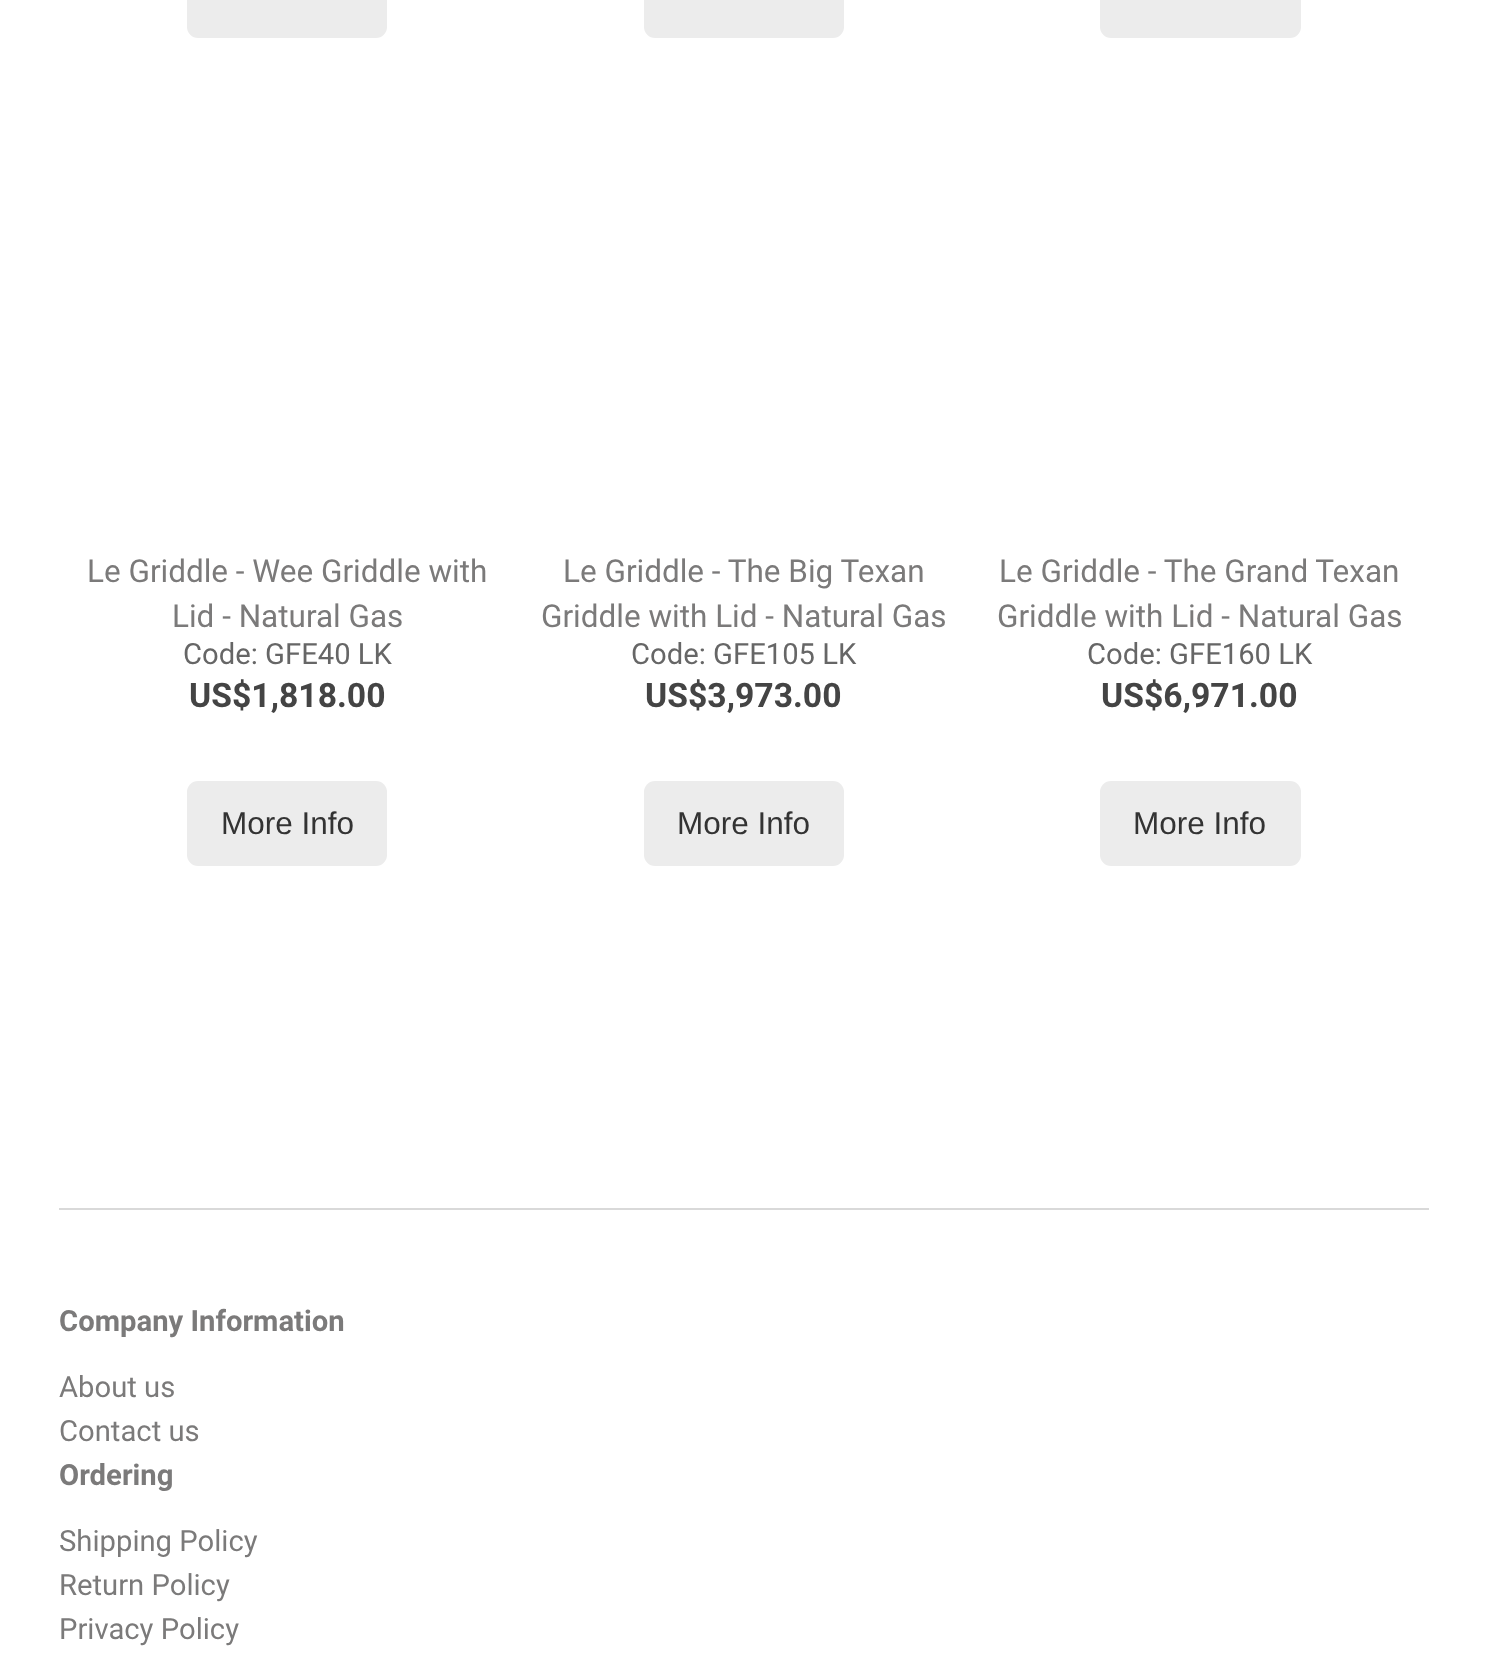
<svg xmlns="http://www.w3.org/2000/svg" width="1487" height="1669" viewBox="0 0 1487 1669">
  <rect width="100%" height="100%" fill="#ffffff"/>
  <rect x="187" y="-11" width="200" height="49" rx="11" fill="#ececec"/>
  <rect x="644" y="-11" width="200" height="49" rx="11" fill="#ececec"/>
  <rect x="1100" y="-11" width="201" height="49" rx="11" fill="#ececec"/>
  <text x="87" y="582" font-family="Roboto" font-size="31.5" fill="#7b7a7a">Le Griddle - Wee Griddle with</text>
  <text x="172" y="627" font-family="Roboto" font-size="31.5" fill="#7b7a7a">Lid - Natural Gas</text>
  <text x="183" y="664" font-family="Roboto" font-size="29.25" fill="#666666">Code: GFE40 LK</text>
  <text x="189" y="707" font-family="Roboto" font-size="33.75" font-weight="bold" fill="#444444">US$1,818.00</text>
  <rect x="187" y="781" width="200" height="85" rx="11" fill="#ececec"/>
  <text x="221" y="834" font-family="Liberation Sans" font-size="31.5" fill="#333333">More Info</text>
  <text x="563" y="582" font-family="Roboto" font-size="31.5" fill="#7b7a7a">Le Griddle - The Big Texan</text>
  <text x="541" y="627" font-family="Roboto" font-size="31.5" fill="#7b7a7a">Griddle with Lid - Natural Gas</text>
  <text x="631" y="664" font-family="Roboto" font-size="29.25" fill="#666666">Code: GFE105 LK</text>
  <text x="645" y="707" font-family="Roboto" font-size="33.75" font-weight="bold" fill="#444444">US$3,973.00</text>
  <rect x="644" y="781" width="200" height="85" rx="11" fill="#ececec"/>
  <text x="677" y="834" font-family="Liberation Sans" font-size="31.5" fill="#333333">More Info</text>
  <text x="999" y="582" font-family="Roboto" font-size="31.5" fill="#7b7a7a">Le Griddle - The Grand Texan</text>
  <text x="997" y="627" font-family="Roboto" font-size="31.5" fill="#7b7a7a">Griddle with Lid - Natural Gas</text>
  <text x="1087" y="664" font-family="Roboto" font-size="29.25" fill="#666666">Code: GFE160 LK</text>
  <text x="1101" y="707" font-family="Roboto" font-size="33.75" font-weight="bold" fill="#444444">US$6,971.00</text>
  <rect x="1100" y="781" width="201" height="85" rx="11" fill="#ececec"/>
  <text x="1133" y="834" font-family="Liberation Sans" font-size="31.5" fill="#333333">More Info</text>
  <rect x="59" y="1208" width="1370" height="2" fill="#d9d9d9"/>
  <text x="59" y="1331" font-family="Roboto" font-size="29.25" font-weight="bold" fill="#7b7a7a">Company Information</text>
  <text x="59" y="1397" font-family="Roboto" font-size="29.25" fill="#7b7a7a">About us</text>
  <text x="59" y="1441" font-family="Roboto" font-size="29.25" fill="#7b7a7a">Contact us</text>
  <text x="59" y="1485" font-family="Roboto" font-size="29.25" font-weight="bold" fill="#7b7a7a">Ordering</text>
  <text x="59" y="1551" font-family="Roboto" font-size="29.25" fill="#7b7a7a">Shipping Policy</text>
  <text x="59" y="1595" font-family="Roboto" font-size="29.25" fill="#7b7a7a">Return Policy</text>
  <text x="59" y="1639" font-family="Roboto" font-size="29.25" fill="#7b7a7a">Privacy Policy</text>
</svg>
